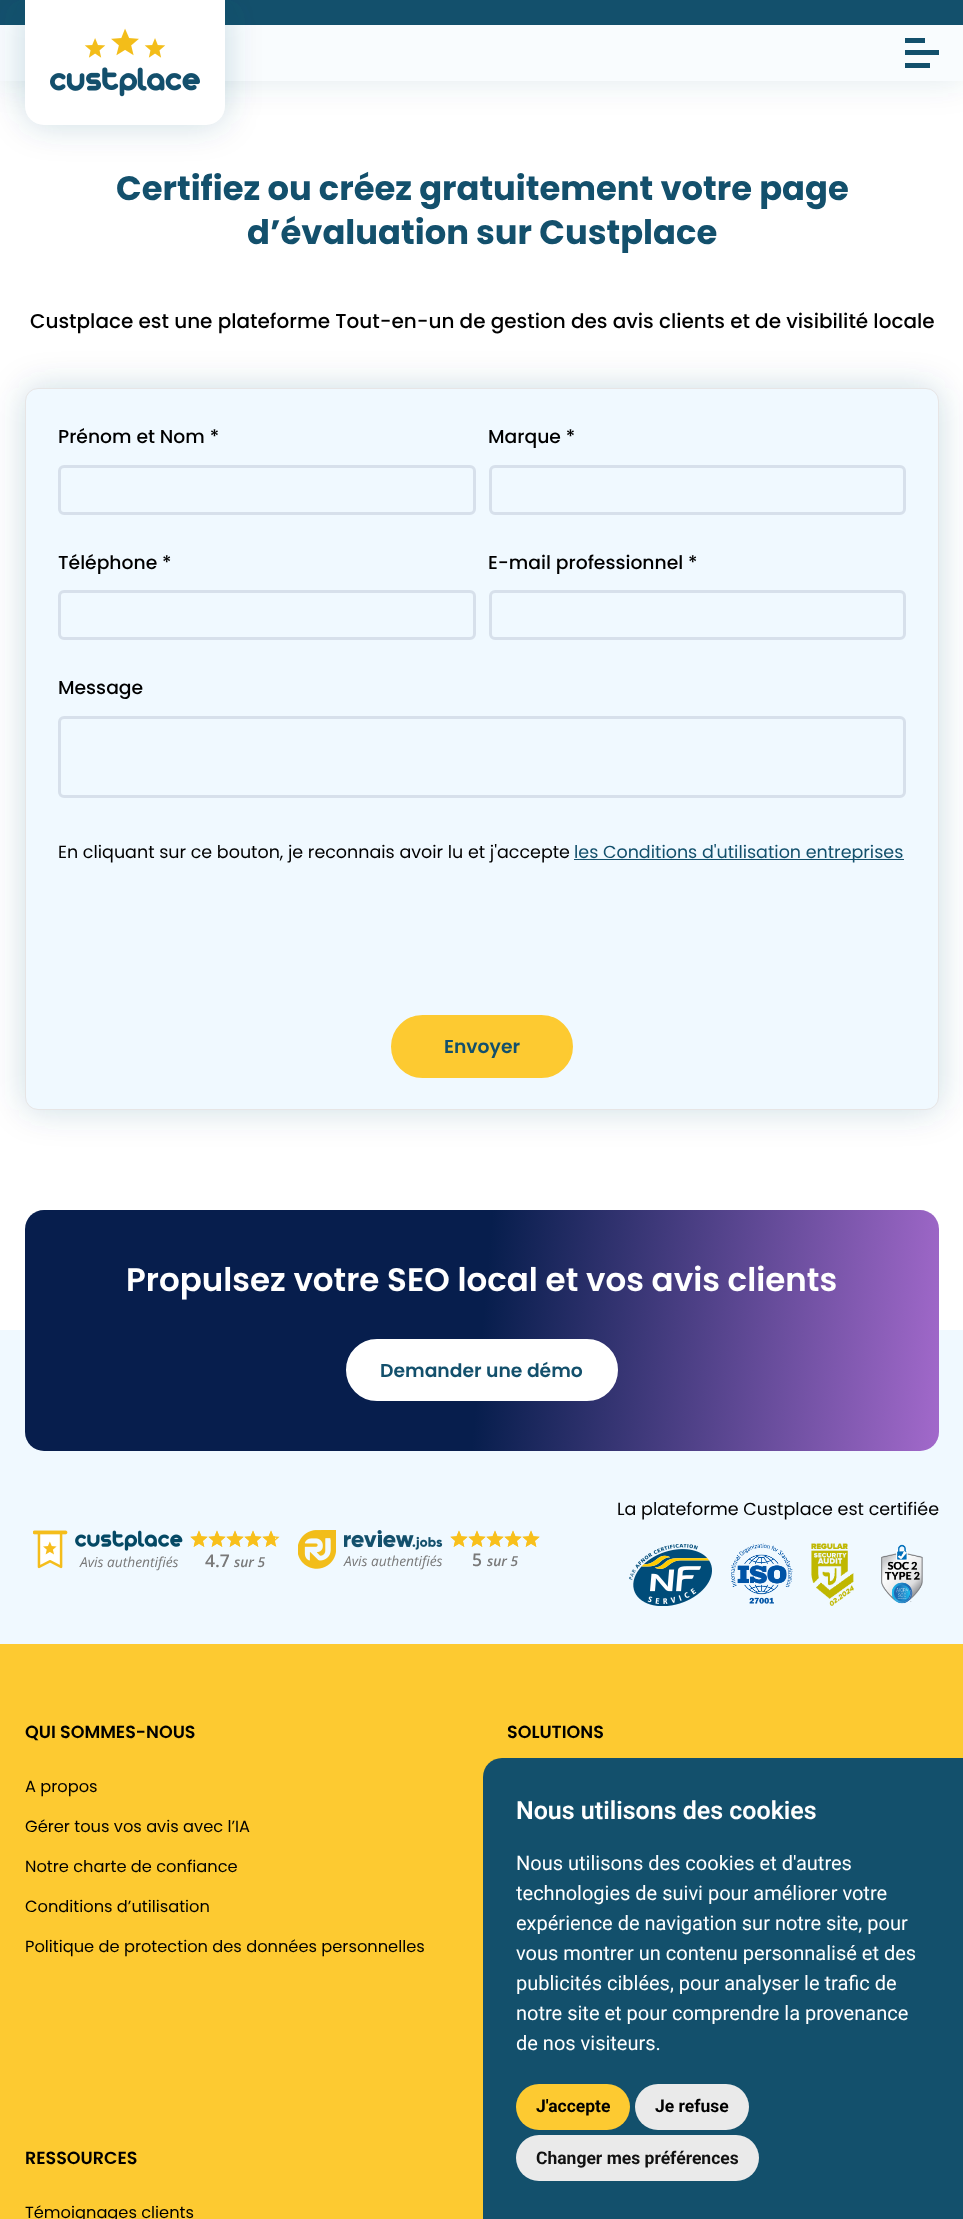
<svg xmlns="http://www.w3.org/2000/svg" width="963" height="2219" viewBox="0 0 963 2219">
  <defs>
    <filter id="blur1" x="-50%" y="-200%" width="200%" height="500%"><feGaussianBlur stdDeviation="17.5"/></filter>
    <linearGradient id="g1" gradientUnits="userSpaceOnUse" x1="18" y1="1290" x2="946" y2="1371"><stop offset="0.5" stop-color="#071e4d"/><stop offset="1" stop-color="#a269cb"/></linearGradient>
  </defs>
  <rect width="100%" height="100%" fill="#ffffff"/>
  <rect x="0" y="0" width="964" height="81" fill="#13506c" fill-opacity="0.12" filter="url(#blur1)"/>
  <rect x="0" y="25" width="963" height="56" fill="#f9fcfe"/>
  <rect x="0" y="0" width="963" height="25" fill="#13506c"/>
  <rect x="25" y="0" width="200" height="125" rx="19" fill="#13506c" fill-opacity="0.2" filter="url(#blur1)"/>
  <path d="M25 0H225V106C225 116.5 216.5 125 206 125H44C33.5 125 25 116.5 25 106Z" fill="#ffffff"/>
  <image x="50" y="28" width="150" height="69" href="img1.png"/>
  <rect x="905" y="50" width="34" height="5" fill="#13506c"/>
  <rect x="905" y="38" width="20" height="5" fill="#13506c"/>
  <rect x="905" y="63" width="25" height="5" fill="#13506c"/>
  <text x="116" y="200" font-family="Poppins" font-size="33.75" font-weight="bold" fill="#13506c">Certifiez ou créez gratuitement votre page</text>
  <text x="247" y="244" font-family="Poppins" font-size="33.75" font-weight="bold" fill="#13506c">d’évaluation sur Custplace</text>
  <text x="30" y="328" font-family="Poppins" font-size="20" font-weight="500" fill="#000000">Custplace est une plateforme Tout-en-un de gestion des avis clients et de visibilité locale</text>
  <rect x="25" y="388" width="914" height="722" rx="13" fill="#13506c" fill-opacity="0.2" filter="url(#blur1)"/>
  <rect x="25.5" y="388.5" width="913" height="721" rx="12.5" fill="#f0f9ff" stroke="#e7e5e5"/>
  <text x="58" y="443" font-family="Poppins" font-size="18.75" font-weight="500" fill="#000000">Prénom et Nom *</text>
  <rect x="59.5" y="466.5" width="415" height="47" rx="4.5" fill="none" stroke="#d7e0eb" stroke-width="3"/>
  <text x="488" y="443" font-family="Poppins" font-size="18.75" font-weight="500" fill="#000000">Marque *</text>
  <rect x="490.5" y="466.5" width="414" height="47" rx="4.5" fill="none" stroke="#d7e0eb" stroke-width="3"/>
  <text x="58" y="569" font-family="Poppins" font-size="18.75" font-weight="500" fill="#000000">Téléphone *</text>
  <rect x="59.5" y="591.5" width="415" height="47" rx="4.5" fill="none" stroke="#d7e0eb" stroke-width="3"/>
  <text x="488" y="569" font-family="Poppins" font-size="18.75" font-weight="500" fill="#000000">E-mail professionnel *</text>
  <rect x="490.5" y="591.5" width="414" height="47" rx="4.5" fill="none" stroke="#d7e0eb" stroke-width="3"/>
  <text x="58" y="694" font-family="Poppins" font-size="18.75" font-weight="500" fill="#000000">Message</text>
  <rect x="59.5" y="717.5" width="845" height="79" rx="4.5" fill="none" stroke="#d7e0eb" stroke-width="3"/>
  <text x="58" y="858" font-family="Poppins" font-size="17.5" fill="#000000">En cliquant sur ce bouton, je reconnais avoir lu et j'accepte</text>
  <rect x="574" y="859" width="330" height="1" fill="#13506c"/>
  <text x="574" y="858" font-family="Poppins" font-size="17.5" fill="#13506c">les Conditions d'utilisation entreprises</text>
  <rect x="392.5" y="1016.5" width="179" height="60" rx="30" fill="#fdca31" stroke="#fdca31" stroke-width="3"/>
  <text x="444" y="1053" font-family="Poppins" font-size="18.75" font-weight="600" fill="#13506c">Envoyer</text>
  <rect x="0" y="1330" width="963" height="314" fill="#f0f9ff"/>
  <rect x="25" y="1210" width="914" height="241" rx="19" fill="url(#g1)"/>
  <text x="126" y="1291" font-family="Poppins" font-size="32.5" font-weight="600" fill="#ffffff">Propulsez votre SEO local et vos avis clients</text>
  <rect x="347.5" y="1340.5" width="269" height="59" rx="29.5" fill="#ffffff" stroke="#ffffff" stroke-width="3"/>
  <text x="380" y="1377" font-family="Poppins" font-size="18.75" font-weight="600" fill="#13506c">Demander une démo</text>
  <text x="617" y="1515" font-family="Poppins" font-size="17.5" fill="#000000">La plateforme Custplace est certifiée</text>
  <image x="629" y="1544" width="83" height="62" href="img2.png"/>
  <image x="731" y="1543" width="62" height="61" href="img3.png"/>
  <image x="811" y="1543" width="43" height="63" href="img4.png"/>
  <image x="881" y="1544" width="42" height="60" href="img5.png"/>
  <image x="33" y="1530" width="35" height="39" href="img6.png"/>
  <image x="75" y="1530" width="108" height="21" href="img7.png"/>
  <text x="80" y="1567" font-family="Open Sans" font-size="13.75" font-style="italic" fill="#797979">Avis authentifiés</text>
  <image x="190" y="1530" width="90" height="17" href="img8.png"/>
  <image x="190" y="1530" width="85" height="17" href="img9.png"/>
  <text x="205" y="1567" font-family="Open Sans" font-size="17.5" font-weight="600" fill="#797979">4.7</text>
  <text x="234" y="1567" font-family="Open Sans" font-size="13.75" font-weight="600" font-style="italic" fill="#797979">sur 5</text>
  <image x="298" y="1530" width="38" height="39" href="img10.png"/>
  <image x="344" y="1530" width="99" height="20" href="img11.png"/>
  <text x="344" y="1566" font-family="Open Sans" font-size="13.75" font-style="italic" fill="#797979">Avis authentifiés</text>
  <image x="450" y="1530" width="90" height="17" href="img8.png"/>
  <image x="450" y="1530" width="90" height="17" href="img12.png"/>
  <text x="472" y="1566" font-family="Open Sans" font-size="17.5" font-weight="600" fill="#797979">5</text>
  <text x="487" y="1566" font-family="Open Sans" font-size="13.75" font-weight="600" font-style="italic" fill="#797979">sur 5</text>
  <rect x="0" y="1644" width="963" height="575" fill="#fdca31"/>
  <text x="25" y="1738" font-family="Poppins" font-size="17.5" font-weight="600" fill="#000000">QUI SOMMES-NOUS</text>
  <text x="25" y="1792" font-family="Poppins" font-size="16.25" fill="#000000">A propos</text>
  <text x="25" y="1832" font-family="Poppins" font-size="16.25" fill="#000000">Gérer tous vos avis avec l’IA</text>
  <text x="25" y="1872" font-family="Poppins" font-size="16.25" fill="#000000">Notre charte de confiance</text>
  <text x="25" y="1912" font-family="Poppins" font-size="16.25" fill="#000000">Conditions d’utilisation</text>
  <text x="25" y="1952" font-family="Poppins" font-size="16.25" fill="#000000">Politique de protection des données personnelles</text>
  <text x="507" y="1738" font-family="Poppins" font-size="17.5" font-weight="600" fill="#000000">SOLUTIONS</text>
  <text x="25" y="2164" font-family="Poppins" font-size="17.5" font-weight="600" fill="#000000">RESSOURCES</text>
  <text x="25" y="2218" font-family="Poppins" font-size="16.25" fill="#000000">Témoignages clients</text>
  <path d="M502 1758H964V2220H483V1777C483 1766.5 491.5 1758 502 1758Z" fill="#13506c"/>
  <text x="516" y="1819" font-family="Roboto" font-size="25" font-weight="600" fill="#ffffff">Nous utilisons des cookies</text>
  <text x="516" y="1870" font-family="Roboto" font-size="20" fill="#ffffff">Nous utilisons des cookies et d'autres</text>
  <text x="516" y="1900" font-family="Roboto" font-size="20" fill="#ffffff">technologies de suivi pour améliorer votre</text>
  <text x="516" y="1930" font-family="Roboto" font-size="20" fill="#ffffff">expérience de navigation sur notre site, pour</text>
  <text x="516" y="1960" font-family="Roboto" font-size="20" fill="#ffffff">vous montrer un contenu personnalisé et des</text>
  <text x="516" y="1990" font-family="Roboto" font-size="20" fill="#ffffff">publicités ciblées, pour analyser le trafic de</text>
  <text x="516" y="2020" font-family="Roboto" font-size="20" fill="#ffffff">notre site et pour comprendre la provenance</text>
  <text x="516" y="2050" font-family="Roboto" font-size="20" fill="#ffffff">de nos visiteurs.</text>
  <rect x="516" y="2084" width="114" height="46" rx="23" fill="#fdca31"/>
  <text x="536" y="2112" font-family="Roboto" font-size="17.5" font-weight="bold" fill="#000000">J'accepte</text>
  <rect x="635" y="2084" width="114" height="46" rx="23" fill="#eaeaea"/>
  <text x="655" y="2112" font-family="Roboto" font-size="17.5" font-weight="bold" fill="#000000">Je refuse</text>
  <rect x="516" y="2135" width="243" height="46" rx="23" fill="#eaeaea"/>
  <text x="536" y="2164" font-family="Roboto" font-size="17.5" font-weight="bold" fill="#111111">Changer mes préférences</text>
</svg>
